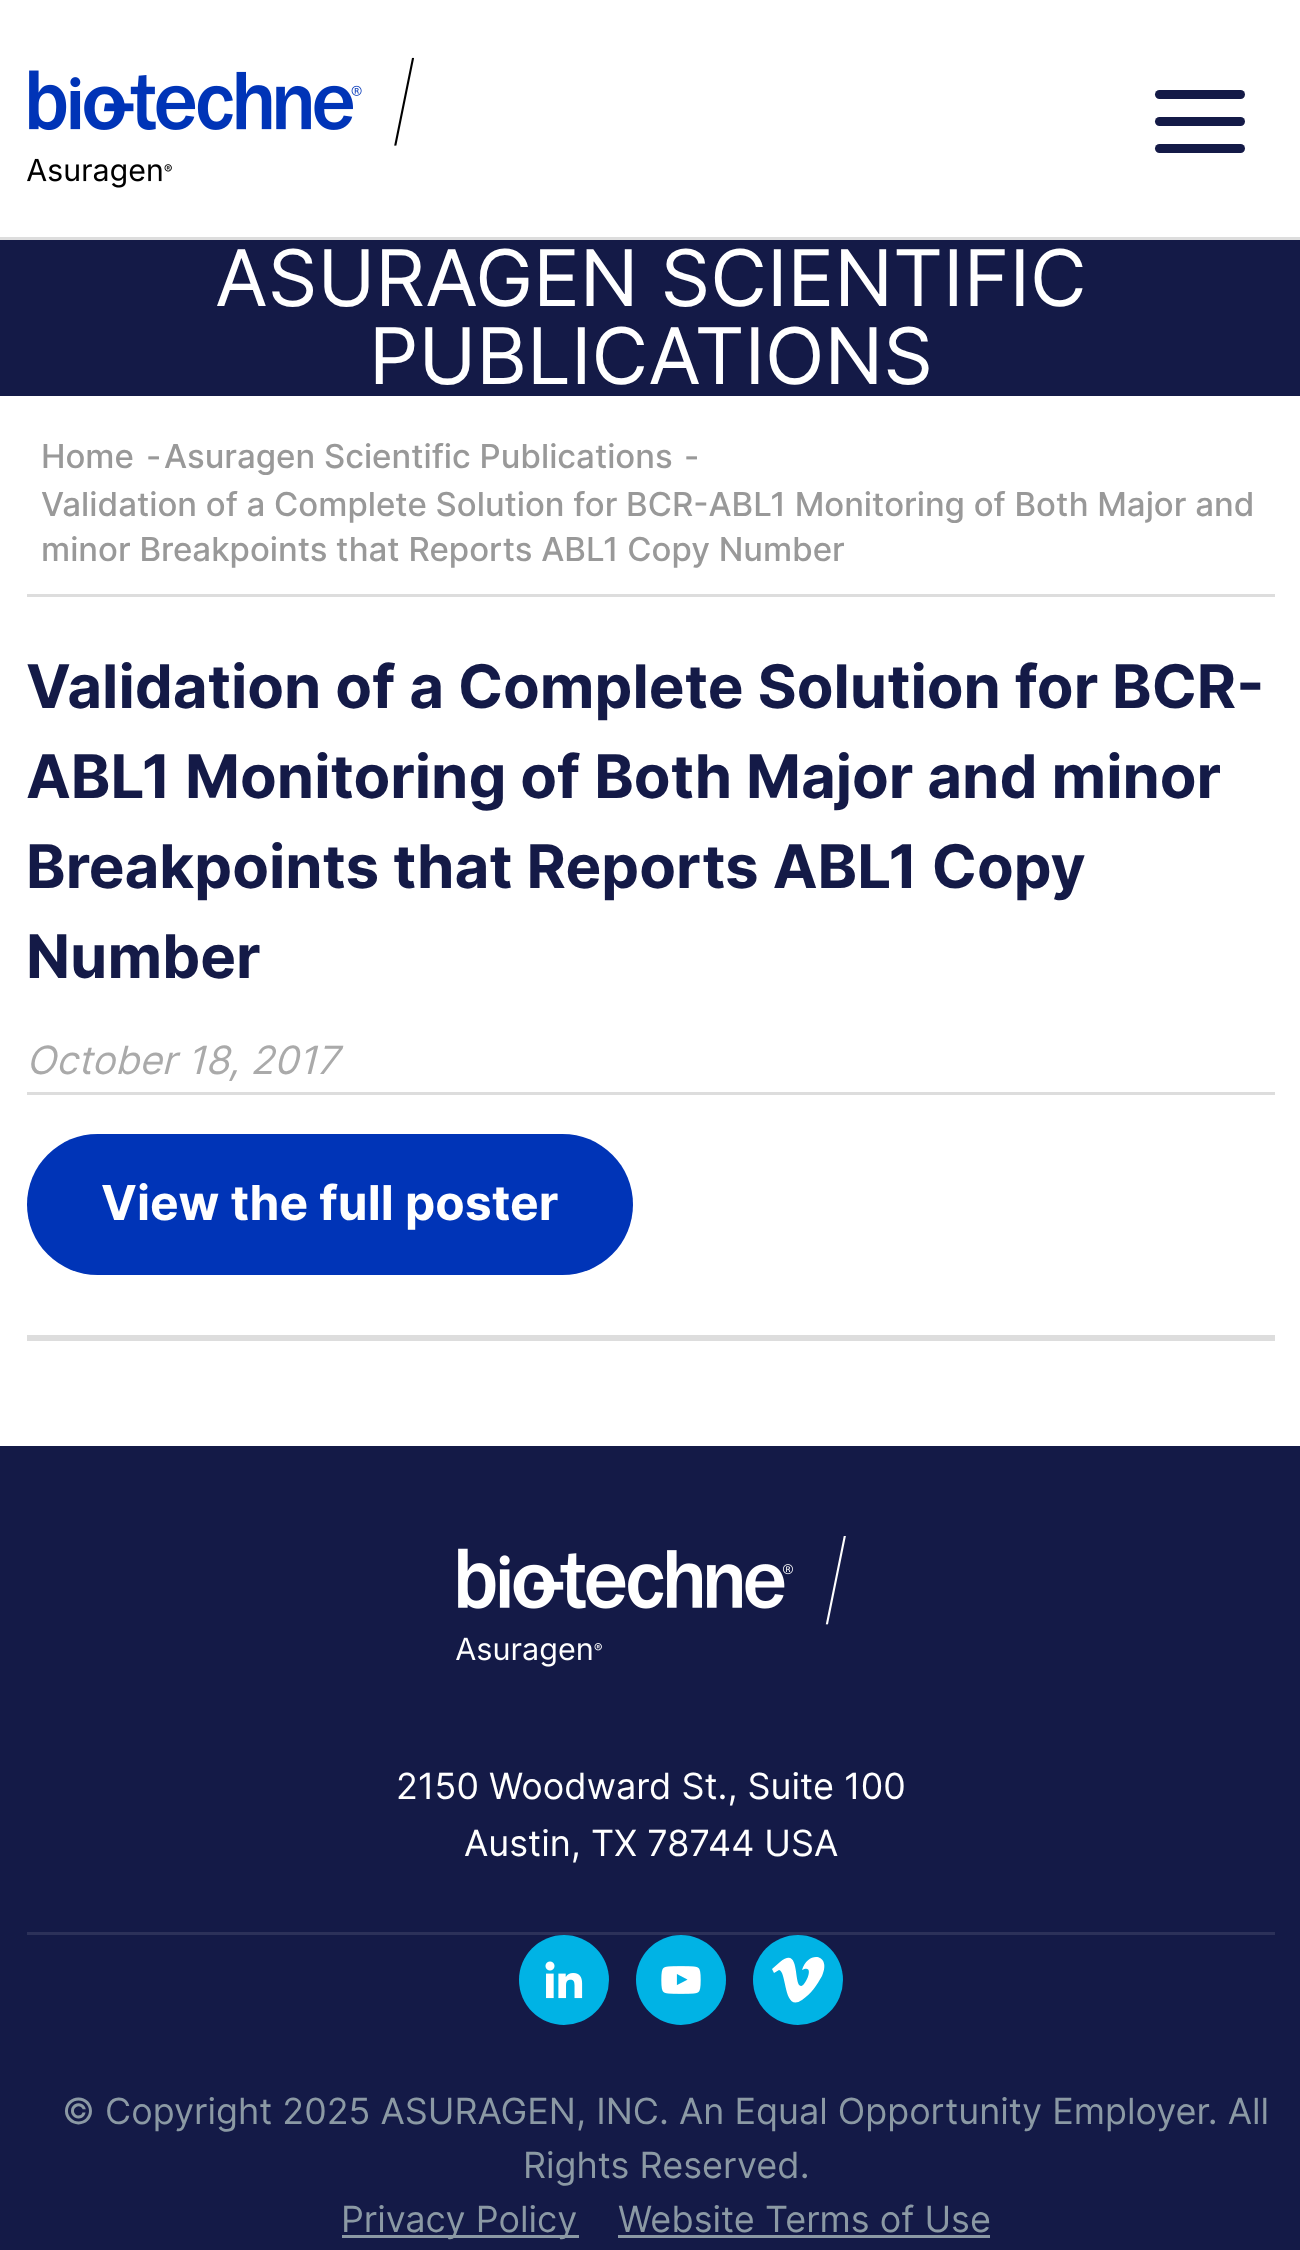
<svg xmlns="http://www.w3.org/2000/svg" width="1300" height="2250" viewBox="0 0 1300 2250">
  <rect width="100%" height="100%" fill="#ffffff"/>
  <rect x="0" y="237" width="1300" height="3" fill="#dddddd"/>
  <image x="27" y="57" width="387" height="131" href="img1.png"/>
  <rect x="1155" y="90" width="90" height="9" rx="4.5" fill="#141a47"/>
  <rect x="1155" y="117" width="90" height="9" rx="4.5" fill="#141a47"/>
  <rect x="1155" y="144" width="90" height="9" rx="4.5" fill="#141a47"/>
  <rect x="0" y="240" width="1300" height="156" fill="#141a47"/>
  <text x="215" y="306" font-family="Inter" font-size="78" fill="#ffffff">ASURAGEN SCIENTIFIC</text>
  <text x="369" y="384" font-family="Inter" font-size="78" fill="#ffffff">PUBLICATIONS</text>
  <rect x="27" y="594" width="1248" height="3" fill="#dddddd"/>
  <text x="41" y="468" font-family="Inter" font-size="33" font-weight="500" fill="#999999">Home</text>
  <text x="146" y="468" font-family="Inter" font-size="33" font-weight="500" fill="#999999">-</text>
  <text x="164" y="468" font-family="Inter" font-size="33" font-weight="500" fill="#999999">Asuragen Scientific Publications</text>
  <text x="684" y="468" font-family="Inter" font-size="33" font-weight="500" fill="#999999">-</text>
  <text x="41" y="516" font-family="Inter" font-size="33" font-weight="500" fill="#999999">Validation of a Complete Solution for BCR-ABL1 Monitoring of Both Major and</text>
  <text x="41" y="561" font-family="Inter" font-size="33" font-weight="500" fill="#999999">minor Breakpoints that Reports ABL1 Copy Number</text>
  <text x="26" y="708" font-family="Inter" font-size="60" font-weight="bold" fill="#141a47">Validation of a Complete Solution for BCR-</text>
  <text x="26" y="798" font-family="Inter" font-size="60" font-weight="bold" fill="#141a47">ABL1 Monitoring of Both Major and minor</text>
  <text x="26" y="888" font-family="Inter" font-size="60" font-weight="bold" fill="#141a47">Breakpoints that Reports ABL1 Copy</text>
  <text x="26" y="978" font-family="Inter" font-size="60" font-weight="bold" fill="#141a47">Number</text>
  <rect x="27" y="1092" width="1248" height="3" fill="#dddddd"/>
  <text x="26" y="1074" font-family="Inter" font-size="39" font-style="italic" fill="#aaaaaa">October 18, 2017</text>
  <rect x="27" y="1134" width="606" height="141" rx="70.5" fill="#0034b7"/>
  <text x="101" y="1220" font-family="Inter" font-size="48" font-weight="bold" fill="#ffffff">View the full poster</text>
  <rect x="27" y="1335" width="1248" height="6" fill="#dddddd"/>
  <rect x="0" y="1446" width="1300" height="804" fill="#141a47"/>
  <rect x="27" y="1932" width="1248" height="3" fill="#2c3159"/>
  <image x="456" y="1536" width="390" height="131" href="img2.png"/>
  <text x="396" y="1799" font-family="Inter" font-size="36" fill="#ffffff">2150 Woodward St., Suite 100</text>
  <text x="464" y="1856" font-family="Inter" font-size="36" fill="#ffffff">Austin, TX 78744 USA</text>
  <circle cx="564" cy="1980" r="45" fill="#00b3e5"/>
  <image x="545" y="1961" width="38" height="38" href="img3.png"/>
  <circle cx="681" cy="1980" r="45" fill="#00b3e5"/>
  <image x="661" y="1966" width="40" height="28" href="img4.png"/>
  <circle cx="798" cy="1980" r="45" fill="#00b3e5"/>
  <path d="M822 1976C817 1985 811 1994 802 2000C783 2013 787 1971 779 1970L774 1973L772 1969L780 1962C801 1945 793 1986 801 1986C805 1987 816 1963 802 1970C808 1950 832 1954 822 1976Z" fill="#ffffff"/>
  <text x="62" y="2124" font-family="Inter" font-size="36" fill="#8b99a4">© Copyright 2025 ASURAGEN, INC. An Equal Opportunity Employer. All</text>
  <text x="523" y="2178" font-family="Inter" font-size="36" fill="#8b99a4">Rights Reserved.</text>
  <rect x="342" y="2235" width="237" height="3" fill="#8b99a4"/>
  <text x="341" y="2232" font-family="Inter" font-size="36" fill="#8b99a4">Privacy Policy</text>
  <text x="618" y="2232" font-family="Inter" font-size="36" fill="#8b99a4">Website Terms of Use</text>
  <rect x="618" y="2235" width="372" height="3" fill="#8b99a4"/>
</svg>
